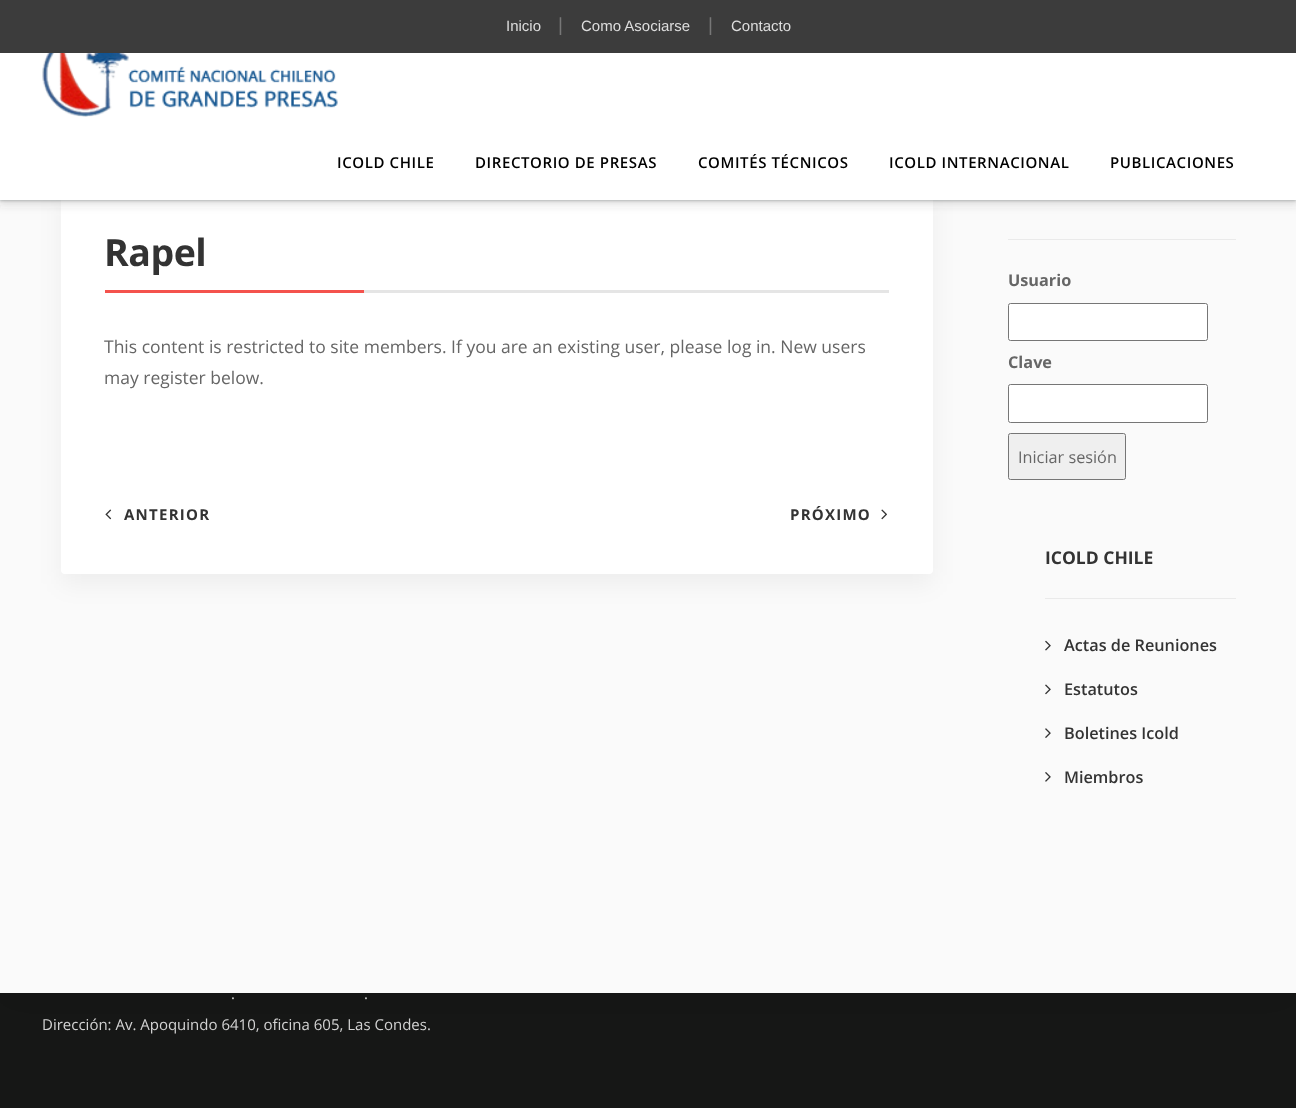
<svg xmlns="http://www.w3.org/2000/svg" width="1296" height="1108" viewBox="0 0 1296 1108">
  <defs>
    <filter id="blur1" x="-50%" y="-200%" width="200%" height="500%"><feGaussianBlur stdDeviation="19"/></filter>
    <filter id="blur2" x="-50%" y="-200%" width="200%" height="500%"><feGaussianBlur stdDeviation="12.5"/></filter>
    <filter id="blur3" x="-50%" y="-200%" width="200%" height="500%"><feGaussianBlur stdDeviation="4"/></filter>
    <filter id="blur4" x="-50%" y="-200%" width="200%" height="500%"><feGaussianBlur stdDeviation="1"/></filter>
  </defs>
  <rect width="100%" height="100%" fill="#161716"/>
  <rect x="0" y="21" width="1296" height="978" fill="#000000" fill-opacity="0.1" filter="url(#blur1)"/>
  <rect x="0" y="200" width="1296" height="793" fill="#fafafa"/>
  <rect x="61" y="200" width="872" height="384" rx="4" fill="#000000" fill-opacity="0.05" filter="url(#blur2)"/>
  <rect x="61" y="190" width="872" height="384" rx="4" fill="#ffffff"/>
  <rect x="-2" y="15" width="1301" height="190" fill="#3c4043" fill-opacity="0.15" filter="url(#blur3)"/>
  <rect x="0" y="16" width="1296" height="185" fill="#3c4043" fill-opacity="0.3" filter="url(#blur4)"/>
  <rect x="0" y="0" width="1296" height="53" fill="#3c3c3c"/>
  <text x="506" y="31" font-family="Liberation Sans" font-size="15" fill="#dddddd">Inicio</text>
  <text x="558" y="31" font-family="Liberation Sans" font-size="19" fill="#777777">|</text>
  <text x="581" y="31" font-family="Liberation Sans" font-size="15" fill="#dddddd">Como Asociarse</text>
  <text x="708" y="31" font-family="Liberation Sans" font-size="19" fill="#777777">|</text>
  <text x="731" y="31" font-family="Liberation Sans" font-size="15" fill="#dddddd">Contacto</text>
  <rect x="0" y="53" width="1296" height="147" fill="#ffffff"/>
  <image x="42" y="53" width="296" height="64" href="img1.png"/>
  <text x="337" y="168" font-family="Open Sans" font-size="15" font-weight="600" letter-spacing="0.6" fill="#000000">ICOLD CHILE</text>
  <text x="475" y="168" font-family="Open Sans" font-size="15" font-weight="600" letter-spacing="0.6" fill="#000000">DIRECTORIO DE PRESAS</text>
  <text x="698" y="168" font-family="Open Sans" font-size="15" font-weight="600" letter-spacing="0.6" fill="#000000">COMITÉS TÉCNICOS</text>
  <text x="889" y="168" font-family="Open Sans" font-size="15" font-weight="600" letter-spacing="0.6" fill="#000000">ICOLD INTERNACIONAL</text>
  <text x="1110" y="168" font-family="Open Sans" font-size="15" font-weight="600" letter-spacing="0.6" fill="#000000">PUBLICACIONES</text>
  <rect x="364" y="290" width="525" height="3" fill="#e5e5e5"/>
  <text x="104" y="266" font-family="Open Sans" font-size="37.5" font-weight="bold" letter-spacing="-0.5" fill="#333333">Rapel</text>
  <rect x="105" y="290" width="259" height="3" fill="#f4524d"/>
  <text x="104" y="353" font-family="Open Sans" font-size="17.5" fill="#666666">This content is restricted to site members. If you are an existing user, please log in. New users</text>
  <text x="104" y="384" font-family="Open Sans" font-size="17.5" fill="#666666">may register below.</text>
  <image x="105" y="509" width="7" height="11" href="img2.png"/>
  <text x="124" y="520" font-family="Open Sans" font-size="15" font-weight="bold" letter-spacing="1.25" fill="#333333">ANTERIOR</text>
  <text x="790" y="520" font-family="Open Sans" font-size="15" font-weight="bold" letter-spacing="1.25" fill="#333333">PRÓXIMO</text>
  <image x="881" y="509" width="6" height="11" href="img3.png"/>
  <rect x="1008" y="239" width="228" height="1" fill="#eaeaea"/>
  <text x="1008" y="286" font-family="Open Sans" font-size="16.25" font-weight="bold" fill="#666666">Usuario</text>
  <rect x="1008.5" y="303.5" width="199" height="37" rx="2" fill="#ffffff" stroke="#767676"/>
  <text x="1008" y="368" font-family="Open Sans" font-size="16.25" font-weight="bold" fill="#666666">Clave</text>
  <rect x="1008.5" y="384.5" width="199" height="38" rx="2" fill="#ffffff" stroke="#767676"/>
  <rect x="1008.5" y="433.5" width="117" height="46" rx="2" fill="#efefef" stroke="#767676"/>
  <text x="1018" y="463" font-family="Open Sans" font-size="16.25" fill="#666666">Iniciar sesión</text>
  <rect x="1045" y="598" width="191" height="1" fill="#eaeaea"/>
  <text x="1045" y="564" font-family="Open Sans" font-size="17.5" font-weight="bold" fill="#333333">ICOLD CHILE</text>
  <image x="1045" y="640" width="6" height="11" href="img4.png"/>
  <text x="1064" y="651" font-family="Open Sans" font-size="16.25" font-weight="600" fill="#333333">Actas de Reuniones</text>
  <image x="1045" y="684" width="6" height="11" href="img5.png"/>
  <text x="1064" y="695" font-family="Open Sans" font-size="16.25" font-weight="600" fill="#333333">Estatutos</text>
  <image x="1045" y="728" width="6" height="10" href="img6.png"/>
  <text x="1064" y="739" font-family="Open Sans" font-size="16.25" font-weight="600" fill="#333333">Boletines Icold</text>
  <image x="1045" y="772" width="6" height="10" href="img7.png"/>
  <text x="1064" y="783" font-family="Open Sans" font-size="16.25" font-weight="600" fill="#333333">Miembros</text>
  <text x="231" y="999" font-family="Open Sans" font-size="15" fill="#d3d3d3">.</text>
  <text x="364" y="999" font-family="Open Sans" font-size="15" fill="#d3d3d3">.</text>
  <text x="42" y="1030" font-family="Open Sans" font-size="15" fill="#d3d3d3">Dirección: Av. Apoquindo 6410, oficina 605, Las Condes.</text>
</svg>
